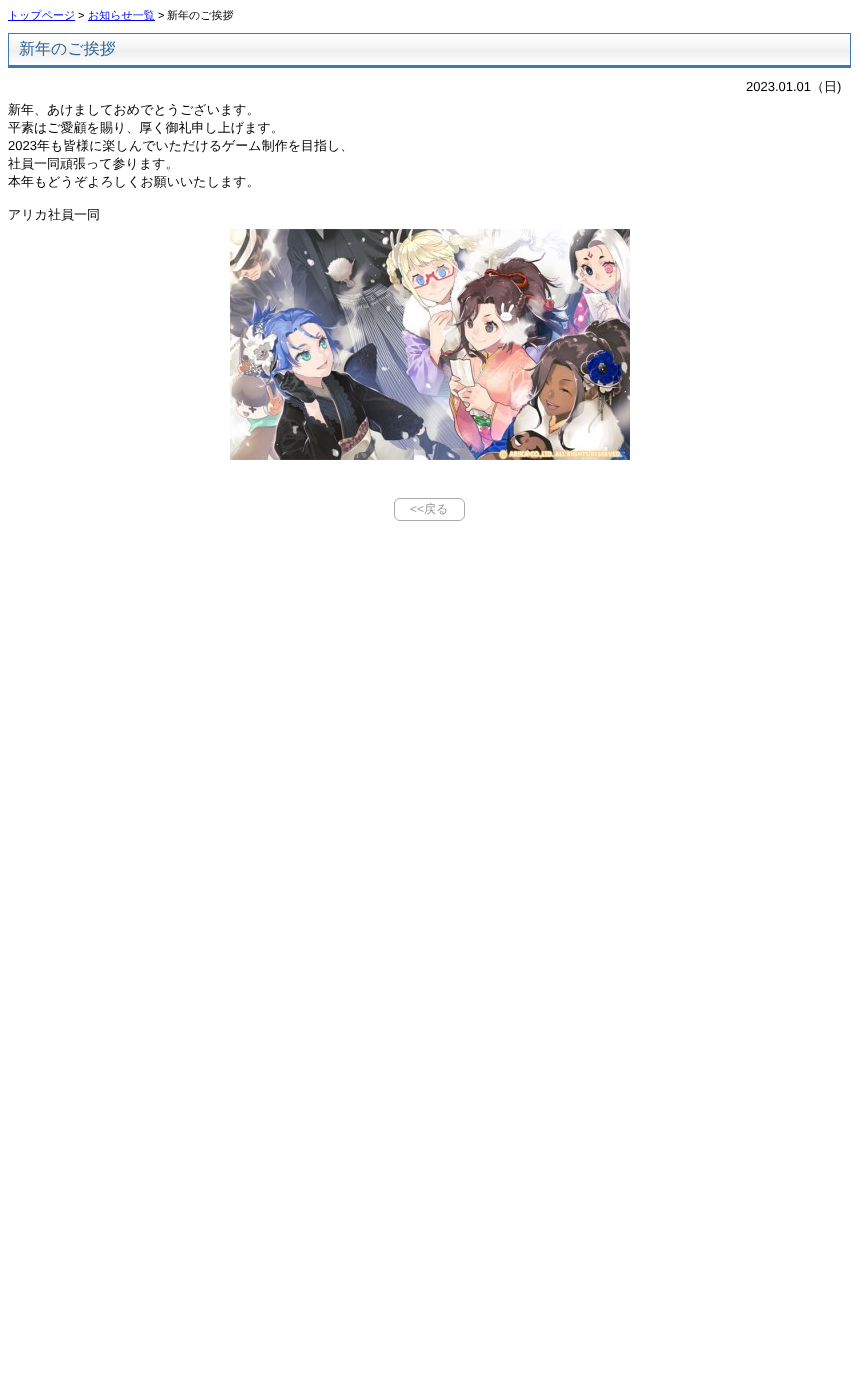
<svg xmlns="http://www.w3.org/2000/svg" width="859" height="1388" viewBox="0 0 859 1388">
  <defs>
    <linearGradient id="g1" gradientUnits="userSpaceOnUse" x1="430" y1="34" x2="430" y2="65"><stop offset="0" stop-color="#ffffff"/><stop offset="0.5" stop-color="#f3f3f3"/><stop offset="0.51" stop-color="#ededed"/><stop offset="1" stop-color="#ffffff"/></linearGradient>
  </defs>
  <rect width="100%" height="100%" fill="#ffffff"/>
  <rect x="8" y="20" width="67" height="1" fill="#0000ee"/>
  <text x="8" y="19" font-family="WenQuanYi Zen Hei" font-size="11" font-weight="500" fill="#0000ee">トップページ</text>
  <text x="78" y="19" font-family="Liberation Sans" font-size="11" fill="#000000">&gt;</text>
  <rect x="88" y="20" width="67" height="1" fill="#0000ee"/>
  <text x="88" y="19" font-family="WenQuanYi Zen Hei" font-size="11" font-weight="500" fill="#0000ee">お知らせ一覧</text>
  <text x="158" y="19" font-family="Liberation Sans" font-size="11" fill="#000000">&gt;</text>
  <text x="167" y="19" font-family="WenQuanYi Zen Hei" font-size="11" font-weight="500" fill="#000000">新年のご挨拶</text>
  <rect x="9" y="37" width="841" height="26" fill="url(#g1)"/>
  <rect x="8" y="33" width="843" height="1" fill="#3d79b6"/>
  <rect x="850" y="33" width="1" height="35" fill="#3d79b6"/>
  <rect x="8" y="65" width="843" height="3" fill="#3d79b6"/>
  <rect x="8" y="33" width="1" height="35" fill="#3d79b6"/>
  <text x="19" y="54" font-family="WenQuanYi Zen Hei" font-size="16" font-weight="500" fill="#336699">新年のご挨拶</text>
  <text x="746" y="91" font-family="Liberation Sans" font-size="13" fill="#000000">2023.01.01</text>
  <text x="811" y="91" font-family="WenQuanYi Zen Hei" font-size="13" font-weight="500" fill="#000000">（日</text>
  <text x="837" y="91" font-family="Liberation Sans" font-size="13" fill="#000000">)</text>
  <text x="8" y="114" font-family="WenQuanYi Zen Hei" font-size="13" font-weight="500" fill="#000000">新年、あけましておめでとうございます。</text>
  <text x="8" y="132" font-family="WenQuanYi Zen Hei" font-size="13" font-weight="500" fill="#000000">平素はご愛顧を賜り、厚く御礼申し上げます。</text>
  <text x="8" y="150" font-family="Liberation Sans" font-size="13" fill="#000000">2023</text>
  <text x="37" y="150" font-family="WenQuanYi Zen Hei" font-size="13" font-weight="500" fill="#000000">年も皆様に楽しんでいただけるゲーム制作を目指し、</text>
  <text x="8" y="168" font-family="WenQuanYi Zen Hei" font-size="13" font-weight="500" fill="#000000">社員一同頑張って参ります。</text>
  <text x="8" y="186" font-family="WenQuanYi Zen Hei" font-size="13" font-weight="500" fill="#000000">本年もどうぞよろしくお願いいたします。</text>
  <text x="8" y="219" font-family="WenQuanYi Zen Hei" font-size="13" font-weight="500" fill="#000000">アリカ社員一同</text>
  <image x="230" y="229" width="400" height="231" href="img1.png"/>
  <rect x="394.5" y="498.5" width="70" height="22" rx="5.5" fill="none" stroke="#aaaaaa"/>
  <text x="410" y="513" font-family="Liberation Sans" font-size="12" fill="#999999">&lt;&lt;</text>
  <text x="424" y="513" font-family="WenQuanYi Zen Hei" font-size="12" font-weight="500" fill="#999999">戻る</text>
</svg>
